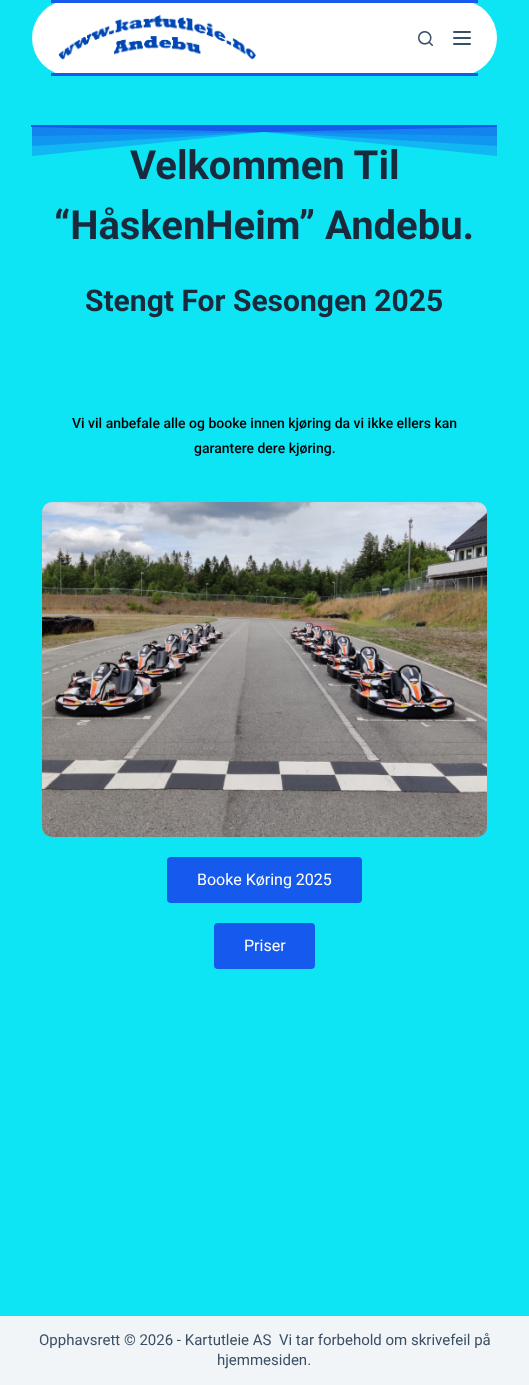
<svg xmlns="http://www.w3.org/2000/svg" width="529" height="1385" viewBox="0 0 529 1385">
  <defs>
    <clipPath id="clip1"><rect x="32" y="125" width="465" height="32"/></clipPath>
  </defs>
  <rect width="100%" height="100%" fill="#0de5f4"/>
  <rect x="32" y="0" width="465" height="76" rx="38" fill="#ffffff"/>
  <rect x="51" y="0" width="427" height="3" fill="#1559ed"/>
  <rect x="51" y="73" width="427" height="3" fill="#1559ed"/>
  <image x="58" y="15" width="198" height="45" href="img1.png"/>
  <image x="418" y="31" width="15" height="15" href="img2.png"/>
  <rect x="453" y="31" width="18" height="2" rx="1" fill="#3a4f66"/>
  <rect x="453" y="37" width="18" height="2" rx="1" fill="#3a4f66"/>
  <rect x="453" y="43" width="18" height="2" rx="1" fill="#3a4f66"/>
  <g clip-path="url(#clip1)">
    <path d="M31 125V156L264 132L497 156V125Z" fill="#10b7f2"/>
    <path d="M31 125V146L264 132L497 146V125Z" fill="#1559ed" fill-opacity="0.33"/>
    <path d="M31 125V136L264 132L497 136V125Z" fill="#1383ef"/>
  </g>
  <path d="M31 125V127L264 132L497 127V125Z" fill="#1559ed"/>
  <text x="130" y="179" font-family="Roboto" font-size="40" font-weight="bold" fill="#192a3d">Velkommen Til</text>
  <text x="54" y="239" font-family="Roboto" font-size="40" font-weight="bold" fill="#192a3d">“HåskenHeim” Andebu.</text>
  <text x="85" y="311" font-family="Roboto" font-size="30" font-weight="bold" fill="#192a3d">Stengt For Sesongen 2025</text>
  <text x="72" y="428" font-family="Roboto" font-size="14" font-weight="500" fill="#000000">Vi vil anbefale alle og booke innen kjøring da vi ikke ellers kan</text>
  <text x="194" y="453" font-family="Roboto" font-size="14" font-weight="500" fill="#000000">garantere dere kjøring.</text>
  <image x="42" y="502" width="445" height="335" href="img3.png"/>
  <rect x="167" y="857" width="195" height="46" rx="4" fill="#1559ed"/>
  <text x="197" y="885" font-family="Roboto" font-size="16" fill="#ffffff">Booke Køring 2025</text>
  <rect x="214" y="923" width="101" height="46" rx="4" fill="#1559ed"/>
  <text x="244" y="951" font-family="Roboto" font-size="16" fill="#ffffff">Priser</text>
  <rect x="0" y="1316" width="529" height="69" fill="#f2f5f7"/>
  <text x="39" y="1345" font-family="Roboto" font-size="15" fill="#3a4f66" xml:space="preserve">Opphavsrett © 2026 - Kartutleie AS  Vi tar forbehold om skrivefeil på</text>
  <text x="217" y="1365" font-family="Roboto" font-size="15" fill="#3a4f66">hjemmesiden.</text>
</svg>
